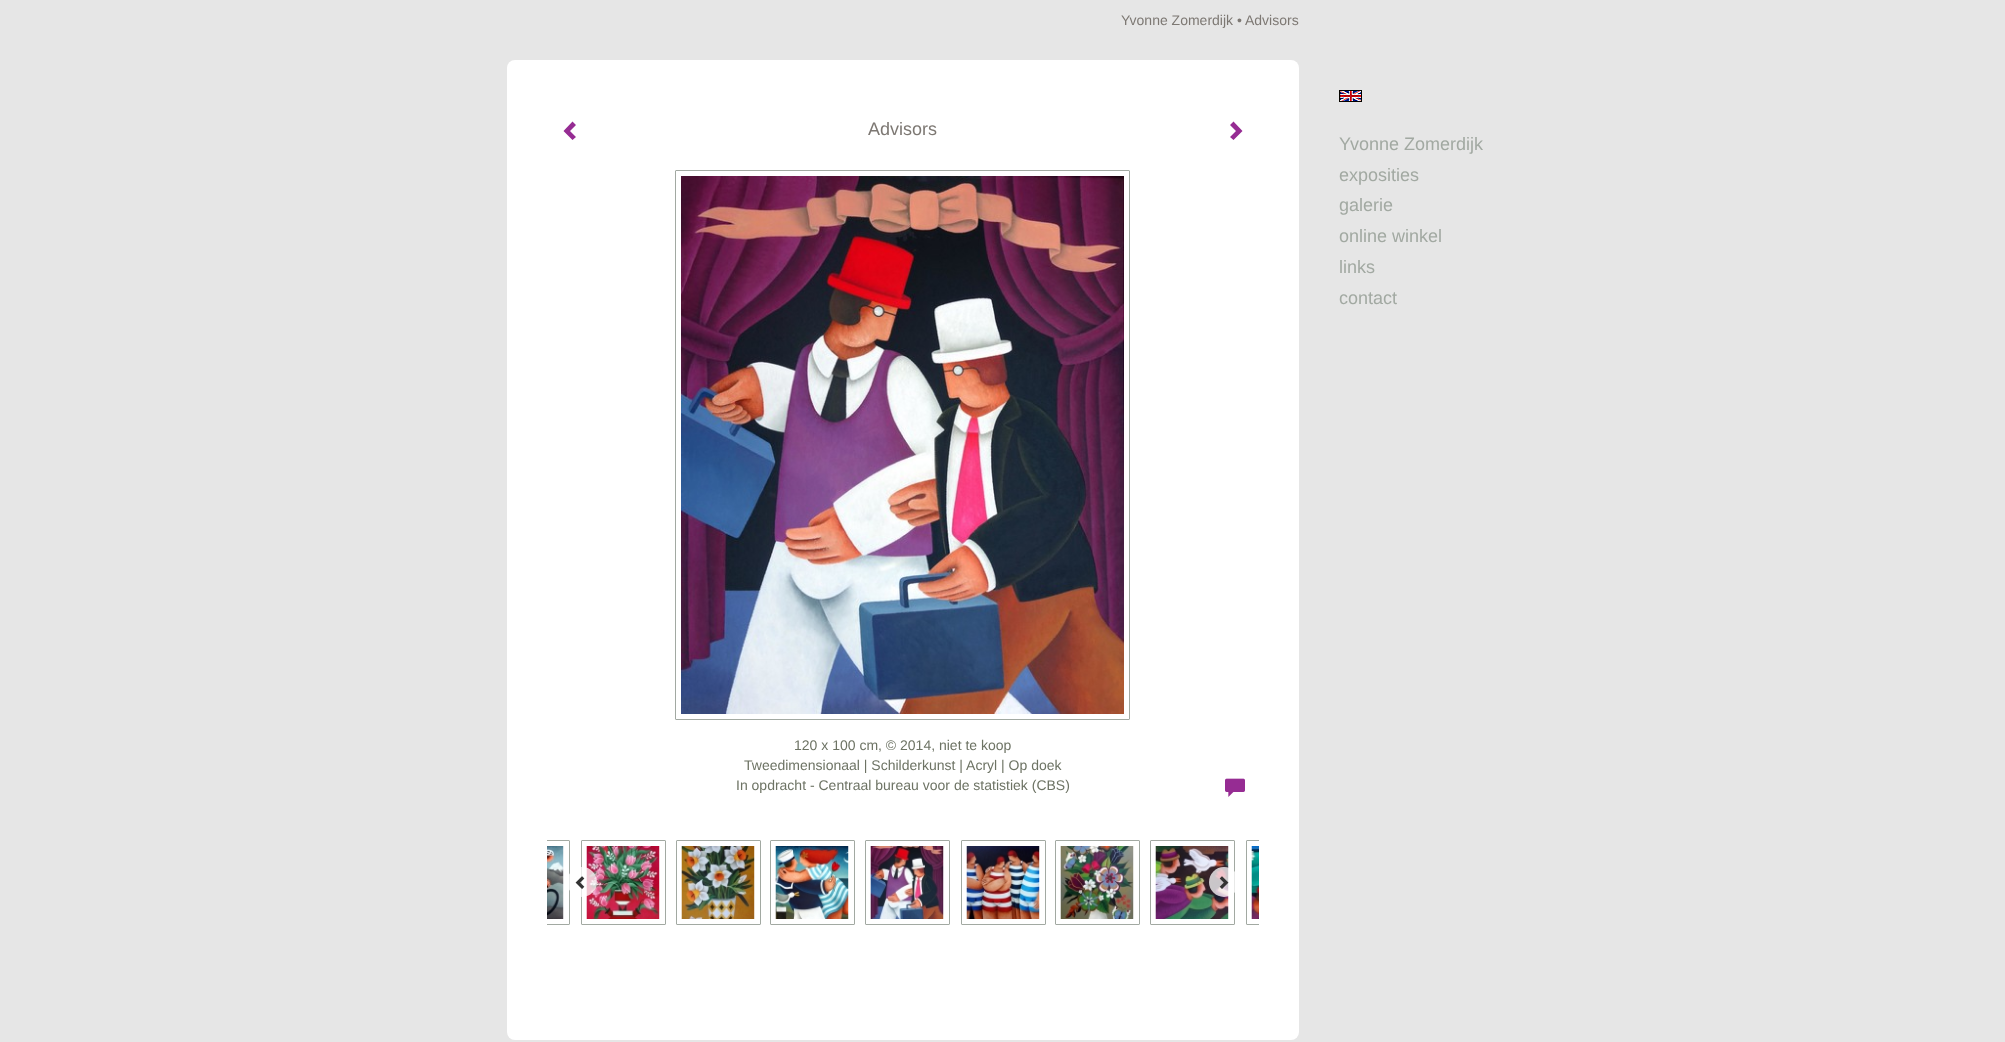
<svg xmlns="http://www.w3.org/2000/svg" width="2005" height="1042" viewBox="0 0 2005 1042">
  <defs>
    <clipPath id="clip1"><rect x="547" y="835" width="712" height="95"/></clipPath>
  </defs>
  <rect width="100%" height="100%" fill="#e6e6e6"/>
  <text x="1121" y="25" font-family="Liberation Sans" font-size="14" fill="#7d7873">Yvonne Zomerdijk •</text>
  <text x="1245" y="25" font-family="Liberation Sans" font-size="14" fill="#7d7873">Advisors</text>
  <rect x="507" y="60" width="792" height="980" rx="8" fill="#ffffff"/>
  <path d="M576 125L570 131L576 137L572.5 140L563.5 131L572.5 121.5Z" fill="#962c93"/>
  <text x="868" y="135" font-family="Liberation Sans" font-size="18" fill="#7d7873">Advisors</text>
  <path d="M1242.5 131L1233.5 140L1230 137L1236 131L1230 125L1233.5 121.5Z" fill="#962c93"/>
  <rect x="675.5" y="170.5" width="454" height="549" rx="0.5" fill="none" stroke="#a2a9a2"/>
  <image x="681" y="176" width="443" height="538" href="img1.png"/>
  <text x="794" y="750" font-family="Liberation Sans" font-size="14" fill="#6d7364">120 x 100 cm, © 2014, niet te koop</text>
  <text x="744" y="770" font-family="Liberation Sans" font-size="14" fill="#6d7364">Tweedimensionaal | Schilderkunst | Acryl | Op doek</text>
  <text x="736" y="790" font-family="Liberation Sans" font-size="14" fill="#6d7364">In opdracht - Centraal bureau voor de statistiek (CBS)</text>
  <image x="1225" y="778" width="20" height="19" href="img2.png"/>
  <g clip-path="url(#clip1)">
    <rect x="485.5" y="840.5" width="84" height="84" rx="0.5" fill="none" stroke="#a2a9a2"/>
  </g>
  <image x="547" y="846" width="17" height="73" href="img3.png"/>
  <rect x="581.5" y="840.5" width="84" height="84" rx="0.5" fill="none" stroke="#a2a9a2"/>
  <image x="586" y="846" width="74" height="73" href="img4.png"/>
  <rect x="676.5" y="840.5" width="84" height="84" rx="0.5" fill="none" stroke="#a2a9a2"/>
  <image x="681" y="846" width="74" height="73" href="img5.png"/>
  <rect x="770.5" y="840.5" width="84" height="84" rx="0.5" fill="none" stroke="#a2a9a2"/>
  <image x="775" y="846" width="74" height="73" href="img6.png"/>
  <rect x="865.5" y="840.5" width="84" height="84" rx="0.5" fill="none" stroke="#a2a9a2"/>
  <image x="870" y="846" width="74" height="73" href="img7.png"/>
  <rect x="961.5" y="840.5" width="84" height="84" rx="0.5" fill="none" stroke="#a2a9a2"/>
  <image x="966" y="846" width="74" height="73" href="img8.png"/>
  <rect x="1055.5" y="840.5" width="84" height="84" rx="0.5" fill="none" stroke="#a2a9a2"/>
  <image x="1060" y="846" width="74" height="73" href="img9.png"/>
  <rect x="1150.5" y="840.5" width="84" height="84" rx="0.5" fill="none" stroke="#a2a9a2"/>
  <image x="1155" y="846" width="74" height="73" href="img10.png"/>
  <g clip-path="url(#clip1)">
    <rect x="1246.5" y="840.5" width="84" height="84" rx="0.5" fill="none" stroke="#a2a9a2"/>
  </g>
  <image x="1251" y="846" width="8" height="73" href="img11.png"/>
  <circle cx="582" cy="882" r="15" fill="#ffffff" fill-opacity="0.75"/>
  <image x="575" y="876" width="10" height="13" href="img12.png"/>
  <circle cx="1224" cy="882" r="15" fill="#ffffff" fill-opacity="0.75"/>
  <image x="1219" y="876" width="10" height="13" href="img13.png"/>
  <image x="1339" y="90" width="23" height="12" href="img14.png"/>
  <text x="1339" y="150" font-family="Liberation Sans" font-size="18" fill="#a2a9a2">Yvonne Zomerdijk</text>
  <text x="1339" y="181" font-family="Liberation Sans" font-size="18" fill="#a2a9a2">exposities</text>
  <text x="1339" y="211" font-family="Liberation Sans" font-size="18" fill="#a2a9a2">galerie</text>
  <text x="1339" y="242" font-family="Liberation Sans" font-size="18" fill="#a2a9a2">online winkel</text>
  <text x="1339" y="273" font-family="Liberation Sans" font-size="18" fill="#a2a9a2">links</text>
  <text x="1339" y="304" font-family="Liberation Sans" font-size="18" fill="#a2a9a2">contact</text>
</svg>
